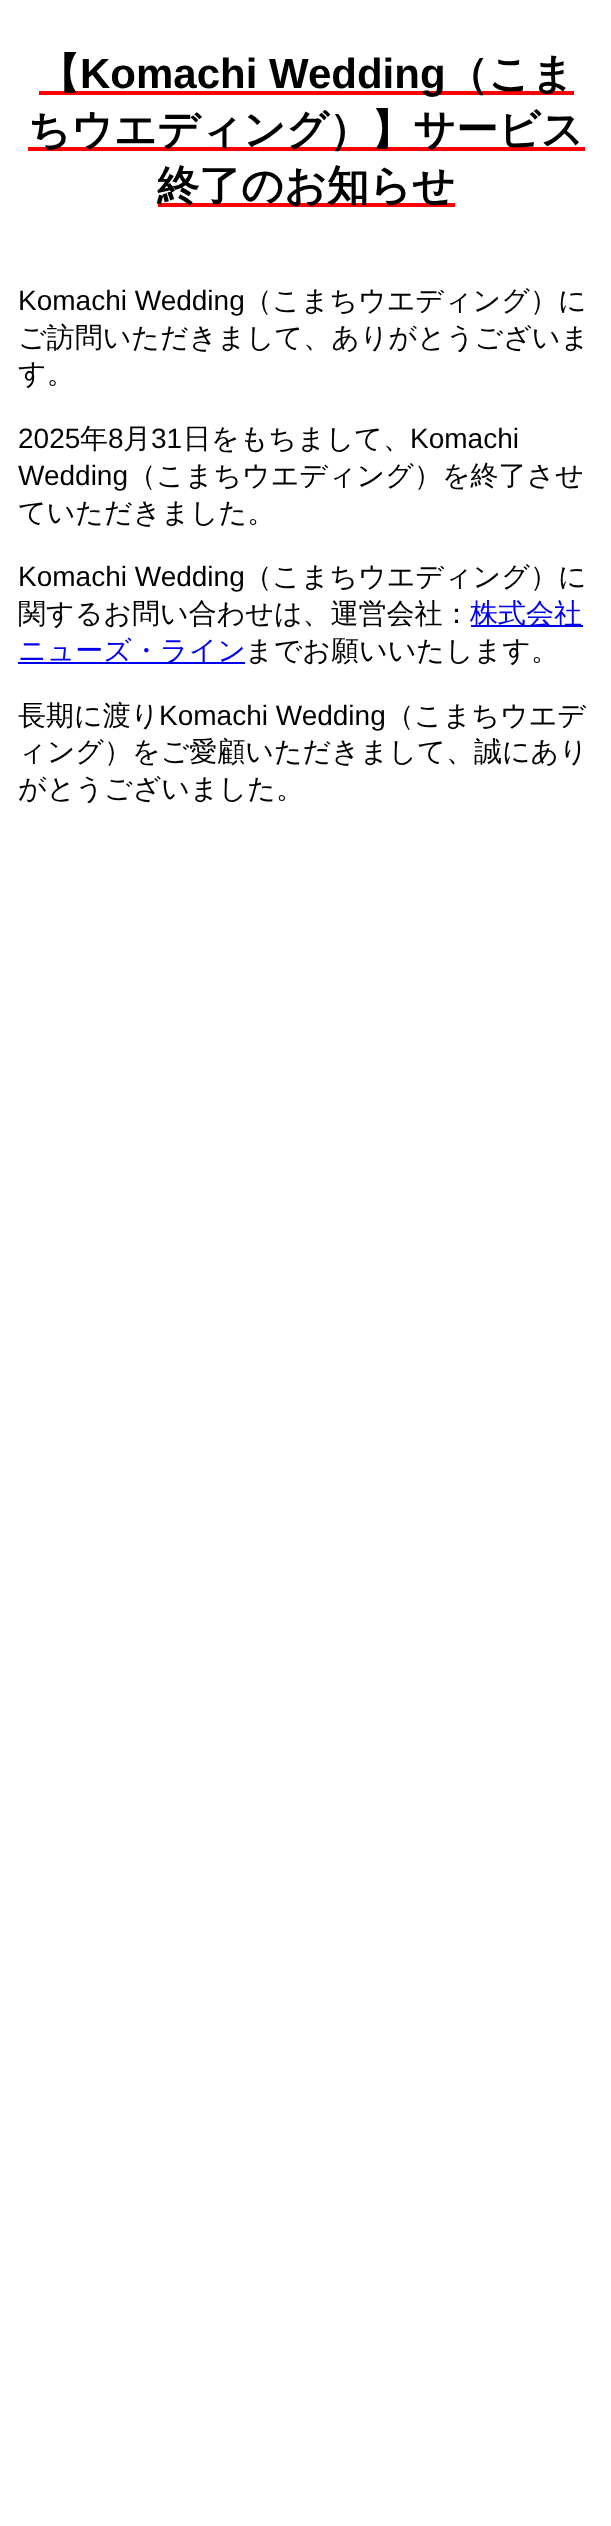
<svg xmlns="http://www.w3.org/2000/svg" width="611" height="2526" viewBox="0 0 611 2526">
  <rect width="100%" height="100%" fill="#ffffff"/>
  <rect x="39" y="91" width="535" height="4" fill="#ff0000"/>
  <text x="38" y="88" font-family="WenQuanYi Zen Hei" font-size="42" font-weight="bold" fill="#000000">【</text>
  <text x="80" y="88" font-family="Liberation Sans" font-size="42" font-weight="bold" fill="#000000">Komachi Wedding</text>
  <text x="446" y="88" font-family="WenQuanYi Zen Hei" font-size="42" font-weight="bold" fill="#000000">（こま</text>
  <rect x="28" y="147" width="557" height="4" fill="#ff0000"/>
  <text x="28" y="144" font-family="WenQuanYi Zen Hei" font-size="42" font-weight="bold" fill="#000000">ちウエディング）】サービス</text>
  <rect x="158" y="203" width="297" height="4" fill="#ff0000"/>
  <text x="157" y="200" font-family="WenQuanYi Zen Hei" font-size="42" font-weight="bold" fill="#000000">終了のお知らせ</text>
  <text x="18" y="310" font-family="Liberation Sans" font-size="28" fill="#000000">Komachi Wedding</text>
  <text x="244" y="310" font-family="WenQuanYi Zen Hei" font-size="28" font-weight="500" fill="#000000">（こまちウエディング）に</text>
  <text x="18" y="347" font-family="WenQuanYi Zen Hei" font-size="28" font-weight="500" fill="#000000">ご訪問いただきまして、ありがとうございま</text>
  <text x="18" y="383" font-family="WenQuanYi Zen Hei" font-size="28" font-weight="500" fill="#000000">す。</text>
  <text x="18" y="448" font-family="Liberation Sans" font-size="28" fill="#000000">2025</text>
  <text x="80" y="448" font-family="WenQuanYi Zen Hei" font-size="28" font-weight="500" fill="#000000">年</text>
  <text x="108" y="448" font-family="Liberation Sans" font-size="28" fill="#000000">8</text>
  <text x="123" y="448" font-family="WenQuanYi Zen Hei" font-size="28" font-weight="500" fill="#000000">月</text>
  <text x="151" y="448" font-family="Liberation Sans" font-size="28" fill="#000000">31</text>
  <text x="183" y="448" font-family="WenQuanYi Zen Hei" font-size="28" font-weight="500" fill="#000000">日をもちまして、</text>
  <text x="410" y="448" font-family="Liberation Sans" font-size="28" fill="#000000">Komachi</text>
  <text x="18" y="485" font-family="Liberation Sans" font-size="28" fill="#000000">Wedding</text>
  <text x="128" y="485" font-family="WenQuanYi Zen Hei" font-size="28" font-weight="500" fill="#000000">（こまちウエディング）を終了させ</text>
  <text x="18" y="522" font-family="WenQuanYi Zen Hei" font-size="28" font-weight="500" fill="#000000">ていただきました。</text>
  <text x="18" y="586" font-family="Liberation Sans" font-size="28" fill="#000000">Komachi Wedding</text>
  <text x="244" y="586" font-family="WenQuanYi Zen Hei" font-size="28" font-weight="500" fill="#000000">（こまちウエディング）に</text>
  <text x="18" y="623" font-family="WenQuanYi Zen Hei" font-size="28" font-weight="500" fill="#000000">関するお問い合わせは、運営会社：</text>
  <rect x="471" y="625" width="112" height="2" fill="#0000ee"/>
  <text x="470" y="623" font-family="WenQuanYi Zen Hei" font-size="28" font-weight="500" fill="#0000ee">株式会社</text>
  <rect x="18" y="662" width="227" height="2" fill="#0000ee"/>
  <text x="18" y="660" font-family="WenQuanYi Zen Hei" font-size="28" font-weight="500" fill="#0000ee">ニューズ・ライン</text>
  <text x="245" y="660" font-family="WenQuanYi Zen Hei" font-size="28" font-weight="500" fill="#000000">までお願いいたします。</text>
  <text x="18" y="725" font-family="WenQuanYi Zen Hei" font-size="28" font-weight="500" fill="#000000">長期に渡り</text>
  <text x="159" y="725" font-family="Liberation Sans" font-size="28" fill="#000000">Komachi Wedding</text>
  <text x="386" y="725" font-family="WenQuanYi Zen Hei" font-size="28" font-weight="500" fill="#000000">（こまちウエデ</text>
  <text x="18" y="761" font-family="WenQuanYi Zen Hei" font-size="28" font-weight="500" fill="#000000">ィング）をご愛顧いただきまして、誠にあり</text>
  <text x="18" y="798" font-family="WenQuanYi Zen Hei" font-size="28" font-weight="500" fill="#000000">がとうございました。</text>
</svg>
